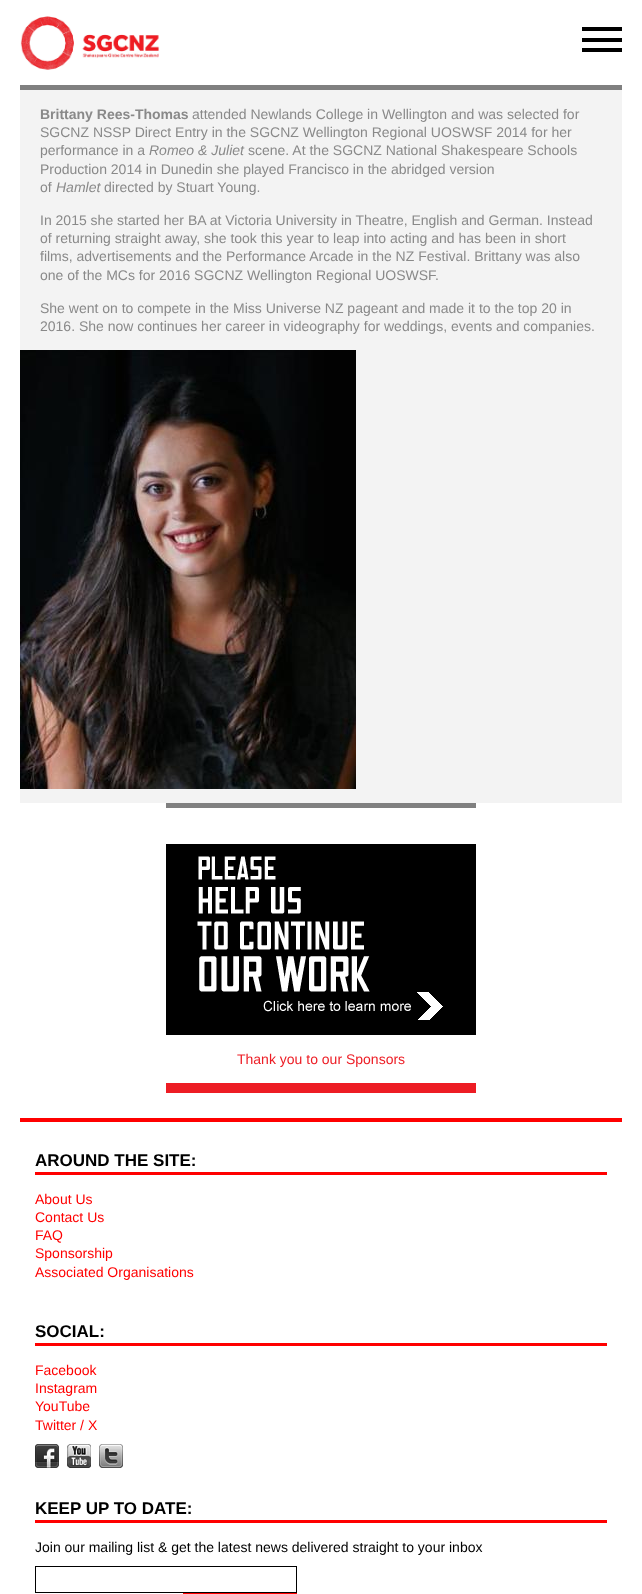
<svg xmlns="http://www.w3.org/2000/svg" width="642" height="1594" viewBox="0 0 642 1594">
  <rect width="100%" height="100%" fill="#ffffff"/>
  <image x="20" y="16" width="140" height="54" href="img1.png"/>
  <rect x="582" y="27" width="40" height="4" fill="#000000"/>
  <rect x="582" y="38" width="40" height="4" fill="#000000"/>
  <rect x="582" y="48" width="40" height="4" fill="#000000"/>
  <rect x="20" y="90" width="602" height="713" fill="#f3f3f3"/>
  <rect x="20" y="85" width="602" height="5" fill="#808080"/>
  <text x="40" y="119" font-family="Liberation Sans" font-size="14" font-weight="bold" fill="#898989">Brittany Rees-Thomas</text>
  <text x="192" y="119" font-family="Liberation Sans" font-size="14" fill="#898989">attended Newlands College in Wellington and was selected for</text>
  <text x="40" y="137" font-family="Liberation Sans" font-size="14" fill="#898989">SGCNZ NSSP Direct Entry in the SGCNZ Wellington Regional UOSWSF 2014 for her</text>
  <text x="40" y="155" font-family="Liberation Sans" font-size="14" fill="#898989">performance in a</text>
  <text x="149" y="155" font-family="Liberation Sans" font-size="14" font-style="italic" fill="#898989">Romeo &amp; Juliet</text>
  <text x="248" y="155" font-family="Liberation Sans" font-size="14" fill="#898989">scene. At the SGCNZ National Shakespeare Schools</text>
  <text x="40" y="174" font-family="Liberation Sans" font-size="14" fill="#898989">Production 2014 in Dunedin she played Francisco in the abridged version</text>
  <text x="40" y="192" font-family="Liberation Sans" font-size="14" fill="#898989">of</text>
  <text x="56" y="192" font-family="Liberation Sans" font-size="14" font-style="italic" fill="#898989">Hamlet</text>
  <text x="104" y="192" font-family="Liberation Sans" font-size="14" fill="#898989">directed by Stuart Young.</text>
  <text x="40" y="225" font-family="Liberation Sans" font-size="14" fill="#898989">In 2015 she started her BA at Victoria University in Theatre, English and German. Instead</text>
  <text x="40" y="243" font-family="Liberation Sans" font-size="14" fill="#898989">of returning straight away, she took this year to leap into acting and has been in short</text>
  <text x="40" y="261" font-family="Liberation Sans" font-size="14" fill="#898989">films, advertisements and the Performance Arcade in the NZ Festival. Brittany was also</text>
  <text x="40" y="280" font-family="Liberation Sans" font-size="14" fill="#898989">one of the MCs for 2016 SGCNZ Wellington Regional UOSWSF.</text>
  <text x="40" y="313" font-family="Liberation Sans" font-size="14" fill="#898989">She went on to compete in the Miss Universe NZ pageant and made it to the top 20 in</text>
  <text x="40" y="331" font-family="Liberation Sans" font-size="14" fill="#898989">2016. She now continues her career in videography for weddings, events and companies.</text>
  <image x="20" y="350" width="336" height="439" href="img2.png"/>
  <rect x="166" y="803" width="310" height="5" fill="#808080"/>
  <image x="166" y="844" width="310" height="191" href="img3.png"/>
  <text x="237" y="1064" font-family="Liberation Sans" font-size="14" fill="#ed1c24">Thank you to our Sponsors</text>
  <rect x="166" y="1083" width="310" height="10" fill="#ed1c24"/>
  <rect x="20" y="1118" width="602" height="4" fill="#ff0000"/>
  <rect x="35" y="1172" width="572" height="3" fill="#ff0000"/>
  <text x="35" y="1166" font-family="Liberation Sans" font-size="17" font-weight="bold" fill="#000000">AROUND THE SITE:</text>
  <text x="35" y="1204" font-family="Liberation Sans" font-size="14" fill="#ff0000">About Us</text>
  <text x="35" y="1222" font-family="Liberation Sans" font-size="14" fill="#ff0000">Contact Us</text>
  <text x="35" y="1240" font-family="Liberation Sans" font-size="14" fill="#ff0000">FAQ</text>
  <text x="35" y="1258" font-family="Liberation Sans" font-size="14" fill="#ff0000">Sponsorship</text>
  <text x="35" y="1277" font-family="Liberation Sans" font-size="14" fill="#ff0000">Associated Organisations</text>
  <rect x="35" y="1343" width="572" height="3" fill="#ff0000"/>
  <text x="35" y="1337" font-family="Liberation Sans" font-size="17" font-weight="bold" fill="#000000">SOCIAL:</text>
  <text x="35" y="1375" font-family="Liberation Sans" font-size="14" fill="#ff0000">Facebook</text>
  <text x="35" y="1393" font-family="Liberation Sans" font-size="14" fill="#ff0000">Instagram</text>
  <text x="35" y="1411" font-family="Liberation Sans" font-size="14" fill="#ff0000">YouTube</text>
  <text x="35" y="1430" font-family="Liberation Sans" font-size="14" fill="#ff0000">Twitter / X</text>
  <image x="35" y="1444" width="24" height="24" href="img4.png"/>
  <image x="67" y="1444" width="24" height="24" href="img5.png"/>
  <image x="99" y="1444" width="24" height="24" href="img6.png"/>
  <rect x="35" y="1520" width="572" height="3" fill="#ff0000"/>
  <text x="35" y="1514" font-family="Liberation Sans" font-size="17" font-weight="bold" fill="#000000">KEEP UP TO DATE:</text>
  <text x="35" y="1552" font-family="Liberation Sans" font-size="14" fill="#000000">Join our mailing list &amp; get the latest news delivered straight to your inbox</text>
  <rect x="35.5" y="1566.5" width="261" height="26" fill="none" stroke="#000000"/>
  <rect x="183" y="1593" width="114" height="1" fill="#ff0000"/>
</svg>
